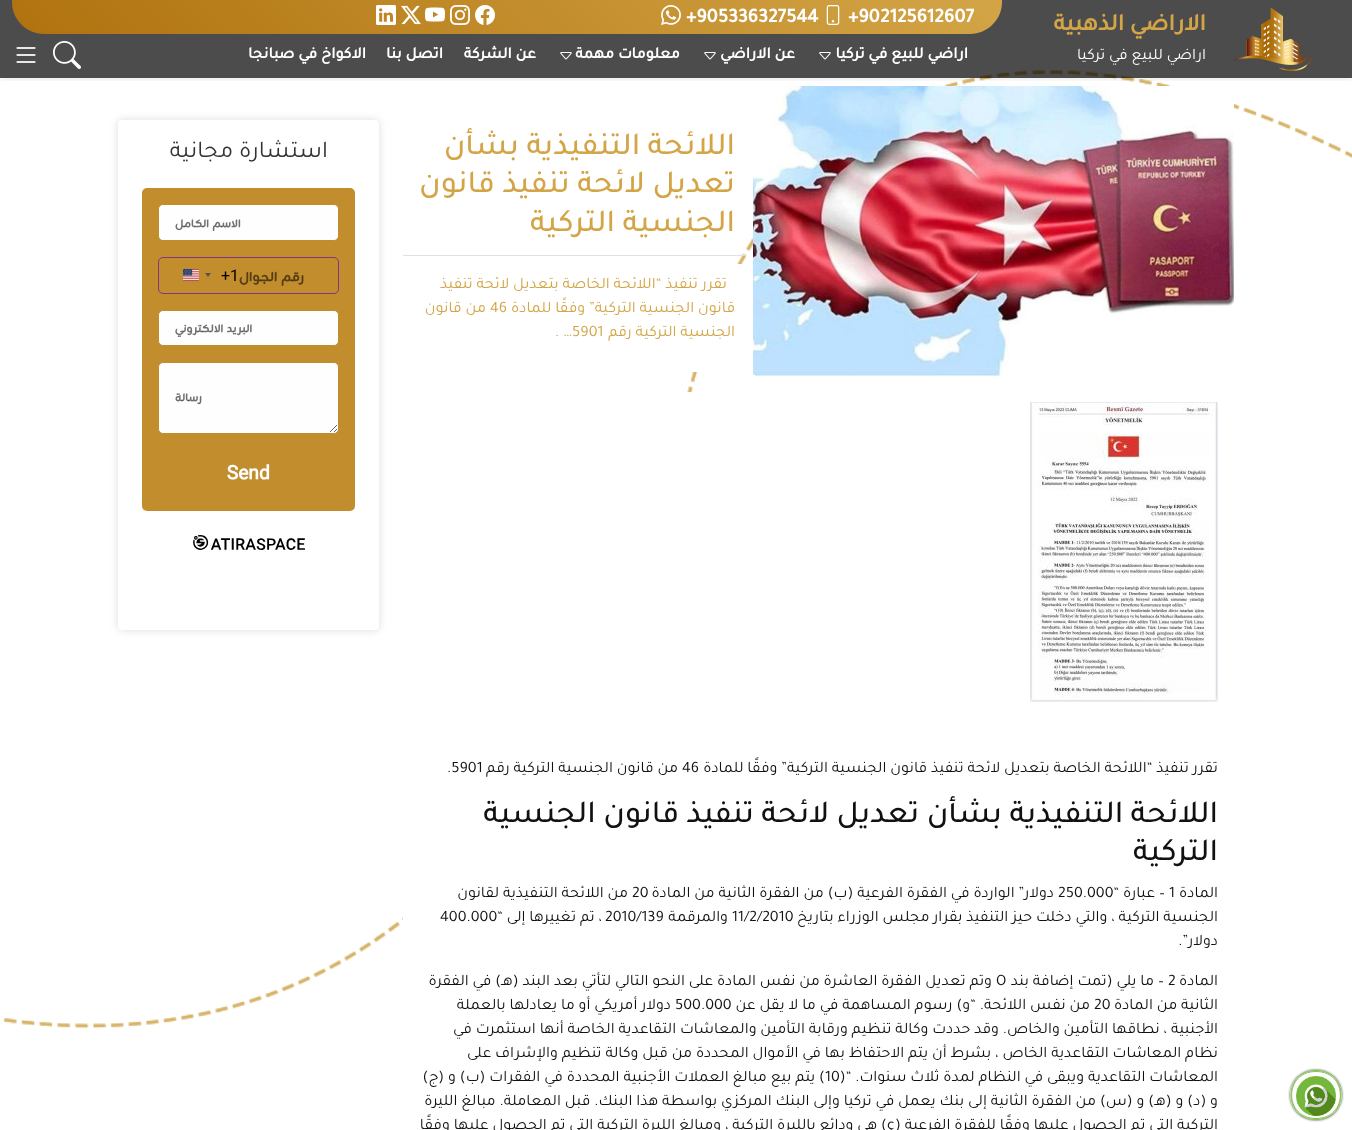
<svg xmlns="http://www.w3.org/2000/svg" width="1352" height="1130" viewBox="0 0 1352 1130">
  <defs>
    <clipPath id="clip1"><rect x="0" y="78" width="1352" height="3"/></clipPath>
    <filter id="blur1" x="-50%" y="-200%" width="200%" height="500%"><feGaussianBlur stdDeviation="2"/></filter>
    <linearGradient id="g1" gradientUnits="userSpaceOnUse" x1="251" y1="273" x2="763" y2="-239"><stop offset="0" stop-color="#b0720f"/><stop offset="1" stop-color="#d3a547"/></linearGradient>
    <clipPath id="clip2"><path d="M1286 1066H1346V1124H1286ZM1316 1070C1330.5 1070 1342 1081 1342 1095C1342 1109 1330.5 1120 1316 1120C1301.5 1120 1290 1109 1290 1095C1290 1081 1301.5 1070 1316 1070Z" clip-rule="evenodd"/></clipPath>
    <filter id="blur2" x="-50%" y="-200%" width="200%" height="500%"><feGaussianBlur stdDeviation="1"/></filter>
    <filter id="blur3" x="-50%" y="-200%" width="200%" height="500%"><feGaussianBlur stdDeviation="4.5"/></filter>
  </defs>
  <rect width="100%" height="100%" fill="#ffffff"/>
  <image x="0" y="0" width="1352" height="1130" href="img1.png"/>
  <image x="753" y="86" width="481" height="290" href="img14.png"/>
  <g clip-path="url(#clip1)">
    <rect x="0" y="2" width="1352" height="78" fill="#000000" fill-opacity="0.07" filter="url(#blur1)"/>
  </g>
  <rect x="0" y="0" width="1352" height="78" fill="#000000" fill-opacity="0.7"/>
  <image x="1233" y="8" width="80" height="63" href="img2.png"/>
  <text x="1206" y="30" font-family="Tajawal" font-size="24" font-weight="bold" direction="rtl" fill="#d3a547">الاراضي الذهبية</text>
  <text x="1206" y="59" font-family="Tajawal" font-size="16" direction="rtl" fill="#ffffff">اراضي للبيع في تركيا</text>
  <path d="M12 0H1002V2C1002 19.5 987.5 34 970 34H44C26.5 34 12 19.5 12 2Z" fill="url(#g1)"/>
  <text x="848" y="22" font-family="Tajawal" font-size="20" font-weight="bold" fill="#ffffff">+902125612607</text>
  <image x="826" y="5" width="14" height="20" href="img3.png"/>
  <text x="686" y="22" font-family="Tajawal" font-size="20" font-weight="bold" fill="#ffffff">+905336327544</text>
  <image x="661" y="5" width="20" height="20" href="img4.png"/>
  <image x="475" y="5" width="20" height="20" href="img5.png"/>
  <image x="450" y="5" width="20" height="20" href="img6.png"/>
  <image x="425" y="7" width="20" height="15" href="img7.png"/>
  <image x="401" y="5" width="20" height="20" href="img8.png"/>
  <image x="376" y="5" width="20" height="20" href="img9.png"/>
  <text x="968" y="58" font-family="Tajawal" font-size="16" font-weight="bold" direction="rtl" fill="#ffffff">اراضي للبيع في تركيا</text>
  <image x="819" y="52" width="12" height="8" href="img10.png"/>
  <text x="795" y="58" font-family="Tajawal" font-size="16" font-weight="bold" direction="rtl" fill="#ffffff">عن الاراضي</text>
  <image x="704" y="52" width="12" height="8" href="img10.png"/>
  <text x="680" y="58" font-family="Tajawal" font-size="16" font-weight="bold" direction="rtl" fill="#ffffff">معلومات مهمة</text>
  <image x="560" y="52" width="12" height="8" href="img10.png"/>
  <text x="536" y="58" font-family="Tajawal" font-size="16" font-weight="bold" direction="rtl" fill="#ffffff">عن الشركة</text>
  <text x="443" y="58" font-family="Tajawal" font-size="16" font-weight="bold" direction="rtl" fill="#ffffff">اتصل بنا</text>
  <text x="366" y="58" font-family="Tajawal" font-size="16" font-weight="bold" direction="rtl" fill="#ffffff">الاكواخ في صبانجا</text>
  <image x="53" y="41" width="28" height="28" href="img11.png"/>
  <image x="16" y="47" width="20" height="16" href="img12.png"/>
  <g clip-path="url(#clip2)">
    <rect x="1290" y="1070" width="52" height="50" rx="25" fill="#333333" filter="url(#blur2)"/>
  </g>
  <path d="M1316 1070.5C1349.5 1070.5 1349.5 1119.5 1316 1119.5C1282.5 1119.5 1282.5 1070.5 1316 1070.5Z" fill="none" stroke="#86c051"/>
  <image x="1296" y="1076" width="40" height="40" href="img13.png"/>
  <path d="M1316 1071.5C1348.5 1071.5 1348.5 1118.5 1316 1118.5C1283.5 1118.5 1283.5 1071.5 1316 1071.5Z" fill="none" stroke="#86c051"/>
  <rect x="403" y="255" width="342" height="1" fill="#dee2e6"/>
  <text x="735" y="154" font-family="Tajawal" font-size="32" font-weight="500" direction="rtl" fill="#d3a547">اللائحة التنفيذية بشأن</text>
  <text x="735" y="192" font-family="Tajawal" font-size="32" font-weight="500" direction="rtl" fill="#d3a547">تعديل لائحة تنفيذ قانون</text>
  <text x="735" y="231" font-family="Tajawal" font-size="32" font-weight="500" direction="rtl" fill="#d3a547">الجنسية التركية</text>
  <rect x="403" y="264" width="342" height="108" rx="4" fill="#ffffff"/>
  <text x="727" y="288" font-family="Tajawal" font-size="16" direction="rtl" fill="#d3a547">تقرر تنفيذ “اللائحة الخاصة بتعديل لائحة تنفيذ</text>
  <text x="735" y="312" font-family="Tajawal" font-size="16" direction="rtl" fill="#d3a547">قانون الجنسية التركية” وفقًا للمادة</text>
  <text x="490" y="312" font-family="Tajawal" font-size="16" fill="#d3a547">46</text>
  <text x="486" y="312" font-family="Tajawal" font-size="16" direction="rtl" fill="#d3a547">من قانون</text>
  <text x="735" y="336" font-family="Tajawal" font-size="16" direction="rtl" fill="#d3a547">الجنسية التركية رقم</text>
  <text x="555" y="336" font-family="Tajawal" font-size="16" fill="#d3a547">. …5901</text>
  <rect x="403" y="392" width="831" height="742" rx="4" fill="#ffffff"/>
  <image x="1030" y="402" width="188" height="300" href="img15.png"/>
  <text x="1218" y="772" font-family="Tajawal" font-size="16" direction="rtl" fill="#111111">تقرر تنفيذ “اللائحة الخاصة بتعديل لائحة تنفيذ قانون الجنسية التركية” وفقًا للمادة</text>
  <text x="682" y="772" font-family="Tajawal" font-size="16" fill="#111111">46</text>
  <text x="678" y="772" font-family="Tajawal" font-size="16" direction="rtl" fill="#111111">من قانون الجنسية التركية رقم</text>
  <text x="447" y="772" font-family="Tajawal" font-size="16" fill="#111111">.5901</text>
  <text x="1218" y="822" font-family="Tajawal" font-size="32" font-weight="500" direction="rtl" fill="#111111">اللائحة التنفيذية بشأن تعديل لائحة تنفيذ قانون الجنسية</text>
  <text x="1218" y="860" font-family="Tajawal" font-size="32" font-weight="500" direction="rtl" fill="#111111">التركية</text>
  <text x="1218" y="897" font-family="Tajawal" font-size="16" direction="rtl" fill="#111111">المادة</text>
  <text x="1169" y="897" font-family="Tajawal" font-size="16" fill="#111111">1</text>
  <text x="1165" y="897" font-family="Tajawal" font-size="16" direction="rtl" fill="#111111">– عبارة “</text>
  <text x="1058" y="897" font-family="Tajawal" font-size="16" fill="#111111">250.000</text>
  <text x="1054" y="897" font-family="Tajawal" font-size="16" direction="rtl" fill="#111111">دولار” الواردة في الفقرة الفرعية (ب) من الفقرة الثانية من المادة</text>
  <text x="632" y="897" font-family="Tajawal" font-size="16" fill="#111111">20</text>
  <text x="628" y="897" font-family="Tajawal" font-size="16" direction="rtl" fill="#111111">من اللائحة التنفيذية لقانون</text>
  <text x="1218" y="921" font-family="Tajawal" font-size="16" direction="rtl" fill="#111111">الجنسية التركية ، والتي دخلت حيز التنفيذ بقرار مجلس الوزراء بتاريخ</text>
  <text x="732" y="921" font-family="Tajawal" font-size="16" fill="#111111">11/2/2010</text>
  <text x="728" y="921" font-family="Tajawal" font-size="16" direction="rtl" fill="#111111">والمرقمة</text>
  <text x="605" y="921" font-family="Tajawal" font-size="16" fill="#111111">2010/139</text>
  <text x="602" y="921" font-family="Tajawal" font-size="16" direction="rtl" fill="#111111">، تم تغييرها إلى “</text>
  <text x="440" y="921" font-family="Tajawal" font-size="16" fill="#111111">400.000</text>
  <text x="1218" y="945" font-family="Tajawal" font-size="16" direction="rtl" fill="#111111">دولار”.</text>
  <text x="1218" y="985" font-family="Tajawal" font-size="16" direction="rtl" fill="#111111">المادة</text>
  <text x="1168" y="985" font-family="Tajawal" font-size="16" fill="#111111">2</text>
  <text x="1164" y="985" font-family="Tajawal" font-size="16" direction="rtl" fill="#111111">– ما يلي (تمت إضافة بند</text>
  <text x="996" y="985" font-family="Tajawal" font-size="16" fill="#111111">O</text>
  <text x="992" y="985" font-family="Tajawal" font-size="16" direction="rtl" fill="#111111">وتم تعديل الفقرة العاشرة من نفس المادة على النحو التالي لتأتي بعد البند (هـ) في الفقرة</text>
  <text x="1218" y="1009" font-family="Tajawal" font-size="16" direction="rtl" fill="#111111">الثانية من المادة</text>
  <text x="1094" y="1009" font-family="Tajawal" font-size="16" fill="#111111">20</text>
  <text x="1090" y="1009" font-family="Tajawal" font-size="16" direction="rtl" fill="#111111">من نفس اللائحة. “و) رسوم المساهمة في ما لا يقل عن</text>
  <text x="675" y="1009" font-family="Tajawal" font-size="16" fill="#111111">500.000</text>
  <text x="671" y="1009" font-family="Tajawal" font-size="16" direction="rtl" fill="#111111">دولار أمريكي أو ما يعادلها بالعملة</text>
  <text x="1218" y="1033" font-family="Tajawal" font-size="16" direction="rtl" fill="#111111">الأجنبية ، نطاقها التأمين والخاص. وقد حددت وكالة تنظيم ورقابة التأمين والمعاشات التقاعدية الخاصة أنها استثمرت في</text>
  <text x="1218" y="1057" font-family="Tajawal" font-size="16" direction="rtl" fill="#111111">نظام المعاشات التقاعدية الخاص ، بشرط أن يتم الاحتفاظ بها في الأموال المحددة من قبل وكالة تنظيم والإشراف على</text>
  <text x="1218" y="1081" font-family="Tajawal" font-size="16" direction="rtl" fill="#111111">المعاشات التقاعدية ويبقى في النظام لمدة ثلاث سنوات. “(</text>
  <text x="825" y="1081" font-family="Tajawal" font-size="16" fill="#111111">10</text>
  <text x="825" y="1081" font-family="Tajawal" font-size="16" direction="rtl" fill="#111111">) يتم بيع مبالغ العملات الأجنبية المحددة في الفقرات (ب) و (ج)</text>
  <text x="1218" y="1105" font-family="Tajawal" font-size="16" direction="rtl" fill="#111111">و (د) و (هـ) و (س) من الفقرة الثانية إلى بنك يعمل في تركيا وإلى البنك المركزي بواسطة هذا البنك. قبل المعاملة. مبالغ الليرة</text>
  <text x="1218" y="1129" font-family="Tajawal" font-size="16" direction="rtl" fill="#111111">التركية التي تم الحصول عليها وفقًا للفقرة الفرعية (</text>
  <text x="887" y="1129" font-family="Tajawal" font-size="16" fill="#111111">ç</text>
  <text x="887" y="1129" font-family="Tajawal" font-size="16" direction="rtl" fill="#111111">) هي ودائع بالليرة التركية ، ومبالغ الليرة التركية التي تم الحصول عليها وفقًا</text>
  <rect x="118" y="120" width="261" height="510" rx="4" fill="#dddddd" filter="url(#blur3)"/>
  <rect x="118" y="120" width="261" height="510" rx="4" fill="#ffffff"/>
  <text x="328" y="157" font-family="Tajawal" font-size="24" direction="rtl" fill="#333333">استشارة مجانية</text>
  <image x="142" y="188" width="213" height="362" href="img16.png"/>
</svg>
